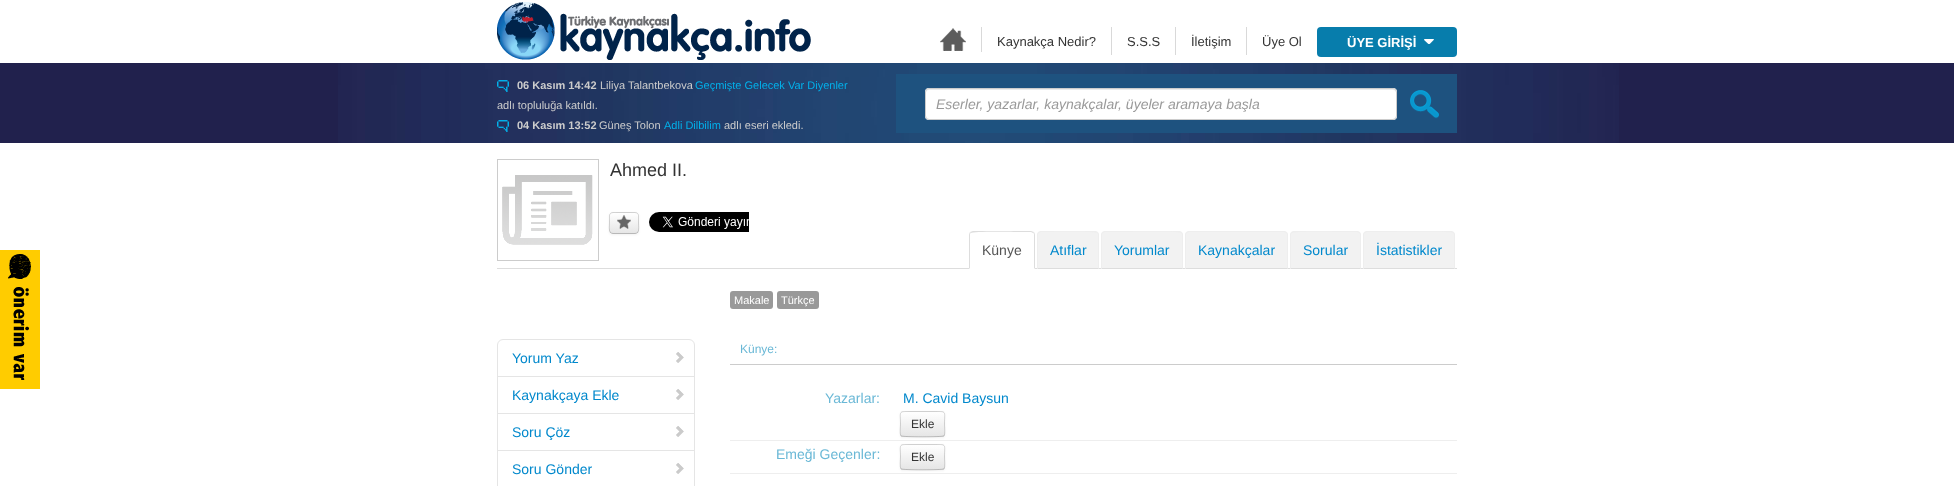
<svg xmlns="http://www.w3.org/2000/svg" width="1954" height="486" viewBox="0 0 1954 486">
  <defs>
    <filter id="blur1" x="-50%" y="-200%" width="200%" height="500%"><feGaussianBlur stdDeviation="1"/></filter>
    <clipPath id="clip1"><rect x="609" y="212" width="30" height="22" rx="4"/></clipPath>
    <linearGradient id="g1" gradientUnits="userSpaceOnUse" x1="624" y1="213" x2="624" y2="233"><stop offset="0" stop-color="#ffffff"/><stop offset="1" stop-color="#e6e6e6"/></linearGradient>
    <clipPath id="clip2"><rect x="900" y="411" width="45" height="26" rx="3"/></clipPath>
    <linearGradient id="g2" gradientUnits="userSpaceOnUse" x1="923" y1="412" x2="923" y2="436"><stop offset="0" stop-color="#ffffff"/><stop offset="1" stop-color="#e6e6e6"/></linearGradient>
    <clipPath id="clip3"><rect x="900" y="444" width="45" height="26" rx="3"/></clipPath>
    <linearGradient id="g3" gradientUnits="userSpaceOnUse" x1="923" y1="445" x2="923" y2="469"><stop offset="0" stop-color="#ffffff"/><stop offset="1" stop-color="#e6e6e6"/></linearGradient>
  </defs>
  <rect width="100%" height="100%" fill="#ffffff"/>
  <image x="497" y="2" width="314" height="58" href="img1.png"/>
  <rect x="981" y="27" width="1" height="25" fill="#d9d9d9"/>
  <image x="940" y="28" width="26" height="23" href="img2.png"/>
  <rect x="1111" y="27" width="1" height="28" fill="#d9d9d9"/>
  <text x="997" y="46" font-family="Liberation Sans" font-size="13" fill="#333333">Kaynakça Nedir?</text>
  <rect x="1175" y="27" width="1" height="28" fill="#d9d9d9"/>
  <text x="1127" y="46" font-family="Liberation Sans" font-size="13" fill="#333333">S.S.S</text>
  <rect x="1246" y="27" width="1" height="28" fill="#d9d9d9"/>
  <text x="1191" y="46" font-family="Liberation Sans" font-size="13" fill="#333333">İletişim</text>
  <text x="1262" y="46" font-family="Liberation Sans" font-size="13" fill="#333333">Üye Ol</text>
  <rect x="1317" y="27" width="140" height="30" rx="4" fill="#077dac"/>
  <text x="1347" y="47" font-family="Liberation Sans" font-size="13" font-weight="bold" fill="#ffffff">ÜYE GİRİŞİ</text>
  <image x="1424" y="39" width="10" height="5" href="img3.png"/>
  <rect x="0" y="63" width="1954" height="80" fill="#21214d"/>
  <image x="338" y="63" width="1281" height="80" href="img4.png"/>
  <image x="497" y="80" width="12" height="12" href="img5.png"/>
  <text x="517" y="89" font-family="Liberation Sans" font-size="11" font-weight="bold" fill="#cccccc">06 Kasım 14:42</text>
  <text x="600" y="89" font-family="Liberation Sans" font-size="11" fill="#cccccc">Liliya Talantbekova</text>
  <text x="695" y="89" font-family="Liberation Sans" font-size="11" fill="#02b0ea">Geçmişte Gelecek Var Diyenler</text>
  <text x="497" y="109" font-family="Liberation Sans" font-size="11" fill="#cccccc">adlı topluluğa katıldı.</text>
  <image x="497" y="120" width="12" height="12" href="img6.png"/>
  <text x="517" y="129" font-family="Liberation Sans" font-size="11" font-weight="bold" fill="#cccccc">04 Kasım 13:52</text>
  <text x="599" y="129" font-family="Liberation Sans" font-size="11" fill="#cccccc">Güneş Tolon</text>
  <text x="664" y="129" font-family="Liberation Sans" font-size="11" fill="#02b0ea">Adli Dilbilim</text>
  <text x="724" y="129" font-family="Liberation Sans" font-size="11" fill="#cccccc">adlı eseri ekledi.</text>
  <rect x="896" y="74" width="561" height="59" fill="#1e527f"/>
  <rect x="925" y="88" width="472" height="32" rx="4" fill="#ffffff"/>
  <path d="M929 90H1393C1395 90 1396 91 1396 93V92C1396 90 1395 89 1393 89H929C927 89 926 90 926 92V93C926 91 927 90 929 90Z" fill="#ececec"/>
  <rect x="925.5" y="88.5" width="471" height="31" rx="3.5" fill="none" stroke="#cccccc"/>
  <text x="936" y="109" font-family="Liberation Sans" font-size="14" font-style="italic" fill="#999999">Eserler, yazarlar, kaynakçalar, üyeler aramaya başla</text>
  <image x="1410" y="90" width="29" height="29" href="img7.png"/>
  <image x="0" y="250" width="40" height="139" href="img8.png"/>
  <rect x="497.5" y="159.5" width="101" height="101" fill="none" stroke="#cccccc"/>
  <image x="502" y="175" width="91" height="70" href="img9.png"/>
  <text x="610" y="176" font-family="Liberation Sans" font-size="18" fill="#333333">Ahmed II.</text>
  <rect x="609" y="213" width="30" height="22" rx="4" fill="#000000" fill-opacity="0.05" filter="url(#blur1)"/>
  <rect x="609" y="212" width="30" height="22" rx="4" fill="#f5f5f5"/>
  <g clip-path="url(#clip1)">
    <rect x="609" y="213" width="30" height="20" fill="url(#g1)"/>
  </g>
  <path d="M637.5 232.5C637 233 636 233.5 635 233.5H613C612 233.5 611 233 610.5 232.5" fill="none" stroke="#b8b8b8"/>
  <path d="M610.5 232.5C608.5 230.5 609.5 225.5 609.5 223V215.5C610 212 614 212.5 616.5 212.5H631.5C634 212.5 638 212 638.5 215.5V223C638.5 225.5 639.5 230.5 637.5 232.5" fill="none" stroke="#000000" stroke-opacity="0.15"/>
  <image x="617" y="215" width="14" height="14" href="img10.png"/>
  <image x="649" y="212" width="100" height="20" href="img11.png"/>
  <path d="M503 339.5H689C692 339.5 694.5 342 694.5 345V376.5H497.5V345C497.5 342 500 339.5 503 339.5Z" fill="none" stroke="#e5e5e5"/>
  <text x="512" y="363" font-family="Liberation Sans" font-size="14" fill="#0088cc">Yorum Yaz</text>
  <image x="676" y="352" width="8" height="11" href="img12.png"/>
  <rect x="497.5" y="376.5" width="197" height="37" fill="none" stroke="#e5e5e5"/>
  <text x="512" y="400" font-family="Liberation Sans" font-size="14" fill="#0088cc">Kaynakçaya Ekle</text>
  <image x="676" y="389" width="8" height="11" href="img12.png"/>
  <rect x="497.5" y="413.5" width="197" height="37" fill="none" stroke="#e5e5e5"/>
  <text x="512" y="437" font-family="Liberation Sans" font-size="14" fill="#0088cc">Soru Çöz</text>
  <image x="676" y="426" width="8" height="11" href="img12.png"/>
  <rect x="497.5" y="450.5" width="197" height="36" fill="none" stroke="#e5e5e5"/>
  <text x="512" y="474" font-family="Liberation Sans" font-size="14" fill="#0088cc">Soru Gönder</text>
  <image x="676" y="463" width="8" height="11" href="img12.png"/>
  <rect x="497" y="268" width="960" height="1" fill="#dddddd"/>
  <path d="M973 231H1031C1033 231 1035 233 1035 235V269H969V235C969 233 971 231 973 231Z" fill="#ffffff"/>
  <path d="M973 231L970 232L971 233C973 231 1016 232 1021 232H1031L1033 233L1034 232L1031 231Z" fill="#dddddd"/>
  <path d="M1035 269V235C1035 234 1034.5 233 1034 232L1033 233C1034 233 1034 234 1034 235V268Z" fill="#dddddd"/>
  <path d="M969 269L970 268V235C970 234 970 233 971 233L970 232C969.5 233 969 234 969 235Z" fill="#dddddd"/>
  <text x="982" y="255" font-family="Liberation Sans" font-size="14" fill="#555555">Künye</text>
  <path d="M1041 231H1095C1097 231 1099 233 1099 235V269H1037V235C1037 233 1039 231 1041 231Z" fill="#f2f2f2"/>
  <path d="M1041 231L1038 232L1039 233L1041 232C1046 232 1095 231 1097 233L1098 232L1095 231Z" fill="#eeeeee"/>
  <path d="M1099 269V235C1099 234 1098.5 233 1098 232L1097 233C1098 233 1098 234 1098 235V268Z" fill="#eeeeee"/>
  <path d="M1099 269L1098 268H1038L1037 269Z" fill="#dddddd"/>
  <path d="M1037 269L1038 268V235C1038 234 1038 233 1039 233L1038 232C1037.5 233 1037 234 1037 235Z" fill="#eeeeee"/>
  <text x="1050" y="255" font-family="Liberation Sans" font-size="14" fill="#0088cc">Atıflar</text>
  <path d="M1105 231H1179C1181 231 1183 233 1183 235V269H1101V235C1101 233 1103 231 1105 231Z" fill="#f2f2f2"/>
  <path d="M1105 231L1102 232L1103 233L1105 232H1117C1124 232 1179 231 1181 233L1182 232L1179 231Z" fill="#eeeeee"/>
  <path d="M1183 269V235C1183 234 1182.5 233 1182 232L1181 233C1182 233 1182 234 1182 235V268Z" fill="#eeeeee"/>
  <path d="M1183 269L1182 268H1102L1101 269Z" fill="#dddddd"/>
  <path d="M1101 269L1102 268V235C1102 234 1102 233 1103 233L1102 232C1101.5 233 1101 234 1101 235Z" fill="#eeeeee"/>
  <text x="1114" y="255" font-family="Liberation Sans" font-size="14" fill="#0088cc">Yorumlar</text>
  <path d="M1189 231H1284C1286 231 1288 233 1288 235V269H1185V235C1185 233 1187 231 1189 231Z" fill="#f2f2f2"/>
  <path d="M1189 231L1186 232L1187 233L1189 232H1284L1286 233L1287 232L1284 231Z" fill="#eeeeee"/>
  <path d="M1288 269V235C1288 234 1287.5 233 1287 232L1286 233C1287 233 1287 234 1287 235V268Z" fill="#eeeeee"/>
  <path d="M1288 269L1287 268H1186L1185 269Z" fill="#dddddd"/>
  <path d="M1185 269L1186 268V235C1186 234 1186 233 1187 233L1186 232C1185.5 233 1185 234 1185 235Z" fill="#eeeeee"/>
  <text x="1198" y="255" font-family="Liberation Sans" font-size="14" fill="#0088cc">Kaynakçalar</text>
  <path d="M1294 231H1357C1359 231 1361 233 1361 235V269H1290V235C1290 233 1292 231 1294 231Z" fill="#f2f2f2"/>
  <path d="M1294 231L1291 232L1292 233C1294 231 1340 232 1346 232H1357L1359 233L1360 232L1357 231Z" fill="#eeeeee"/>
  <path d="M1361 269V235C1361 234 1360.5 233 1360 232L1359 233C1360 233 1360 234 1360 235V268Z" fill="#eeeeee"/>
  <path d="M1361 269L1360 268H1291L1290 269Z" fill="#dddddd"/>
  <path d="M1290 269L1291 268V235C1291 234 1291 233 1292 233L1291 232C1290.5 233 1290 234 1290 235Z" fill="#eeeeee"/>
  <text x="1303" y="255" font-family="Liberation Sans" font-size="14" fill="#0088cc">Sorular</text>
  <path d="M1367 231H1451C1453 231 1455 233 1455 235V269H1363V235C1363 233 1365 231 1367 231Z" fill="#f2f2f2"/>
  <path d="M1367 231L1364 232L1365 233L1367 232H1381C1389 232 1451 231 1453 233L1454 232L1451 231Z" fill="#eeeeee"/>
  <path d="M1455 269V235C1455 234 1454.5 233 1454 232L1453 233C1454 233 1454 234 1454 235V268Z" fill="#eeeeee"/>
  <path d="M1455 269L1454 268H1364L1363 269Z" fill="#dddddd"/>
  <path d="M1363 269L1364 268V235C1364 234 1364 233 1365 233L1364 232C1363.5 233 1363 234 1363 235Z" fill="#eeeeee"/>
  <text x="1376" y="255" font-family="Liberation Sans" font-size="14" fill="#0088cc">İstatistikler</text>
  <rect x="730" y="291" width="43" height="18" rx="3" fill="#999999"/>
  <text x="734" y="304" font-family="Liberation Sans" font-size="11" fill="#ffffff">Makale</text>
  <rect x="777" y="291" width="42" height="18" rx="3" fill="#999999"/>
  <text x="781" y="304" font-family="Liberation Sans" font-size="11" fill="#ffffff">Türkçe</text>
  <text x="740" y="353" font-family="Liberation Sans" font-size="12" fill="#6ab8d6">Künye:</text>
  <rect x="730" y="364" width="727" height="1" fill="#cccccc"/>
  <text x="825" y="403" font-family="Liberation Sans" font-size="14" fill="#6ab8d6">Yazarlar:</text>
  <text x="903" y="403" font-family="Liberation Sans" font-size="14" fill="#0088cc">M. Cavid Baysun</text>
  <rect x="730" y="440" width="727" height="1" fill="#eeeeee"/>
  <rect x="900" y="412" width="45" height="26" rx="3" fill="#000000" fill-opacity="0.05" filter="url(#blur1)"/>
  <rect x="900" y="411" width="45" height="26" rx="3" fill="#f5f5f5"/>
  <g clip-path="url(#clip2)">
    <rect x="900" y="412" width="45" height="24" fill="url(#g2)"/>
  </g>
  <path d="M903 413H942C943 413 944 414 944 415C944 410 939 412 936 412H910C906 412 901 410 901 415C901 414 902 413 903 413Z" fill="#fefefe"/>
  <path d="M944 436C942.5 437 902.5 437 901 436" fill="none" stroke="#000000" stroke-opacity="0.25"/>
  <path d="M901 436C899.5 434 900.5 426.5 900.5 424C900.5 411.5 898 411.5 909.5 411.5H935.5C947 411.5 944.5 411.5 944.5 424C944.5 426.5 945.5 434 944 436" fill="none" stroke="#000000" stroke-opacity="0.15"/>
  <text x="911" y="428" font-family="Liberation Sans" font-size="12" fill="#333333">Ekle</text>
  <text x="776" y="459" font-family="Liberation Sans" font-size="14" fill="#6ab8d6">Emeği Geçenler:</text>
  <rect x="730" y="473" width="727" height="1" fill="#eeeeee"/>
  <rect x="900" y="445" width="45" height="26" rx="3" fill="#000000" fill-opacity="0.05" filter="url(#blur1)"/>
  <rect x="900" y="444" width="45" height="26" rx="3" fill="#f5f5f5"/>
  <g clip-path="url(#clip3)">
    <rect x="900" y="445" width="45" height="24" fill="url(#g3)"/>
  </g>
  <path d="M903 446H942C943 446 944 447 944 448C944 443 939 445 936 445H910C906 445 901 443 901 448C901 447 902 446 903 446Z" fill="#fefefe"/>
  <path d="M944 469C942.5 470 902.5 470 901 469" fill="none" stroke="#000000" stroke-opacity="0.25"/>
  <path d="M901 469C899.5 467 900.5 459.5 900.5 457C900.5 444.5 898 444.5 909.5 444.5H935.5C947 444.5 944.5 444.5 944.5 457C944.5 459.5 945.5 467 944 469" fill="none" stroke="#000000" stroke-opacity="0.15"/>
  <text x="911" y="461" font-family="Liberation Sans" font-size="12" fill="#333333">Ekle</text>
</svg>
